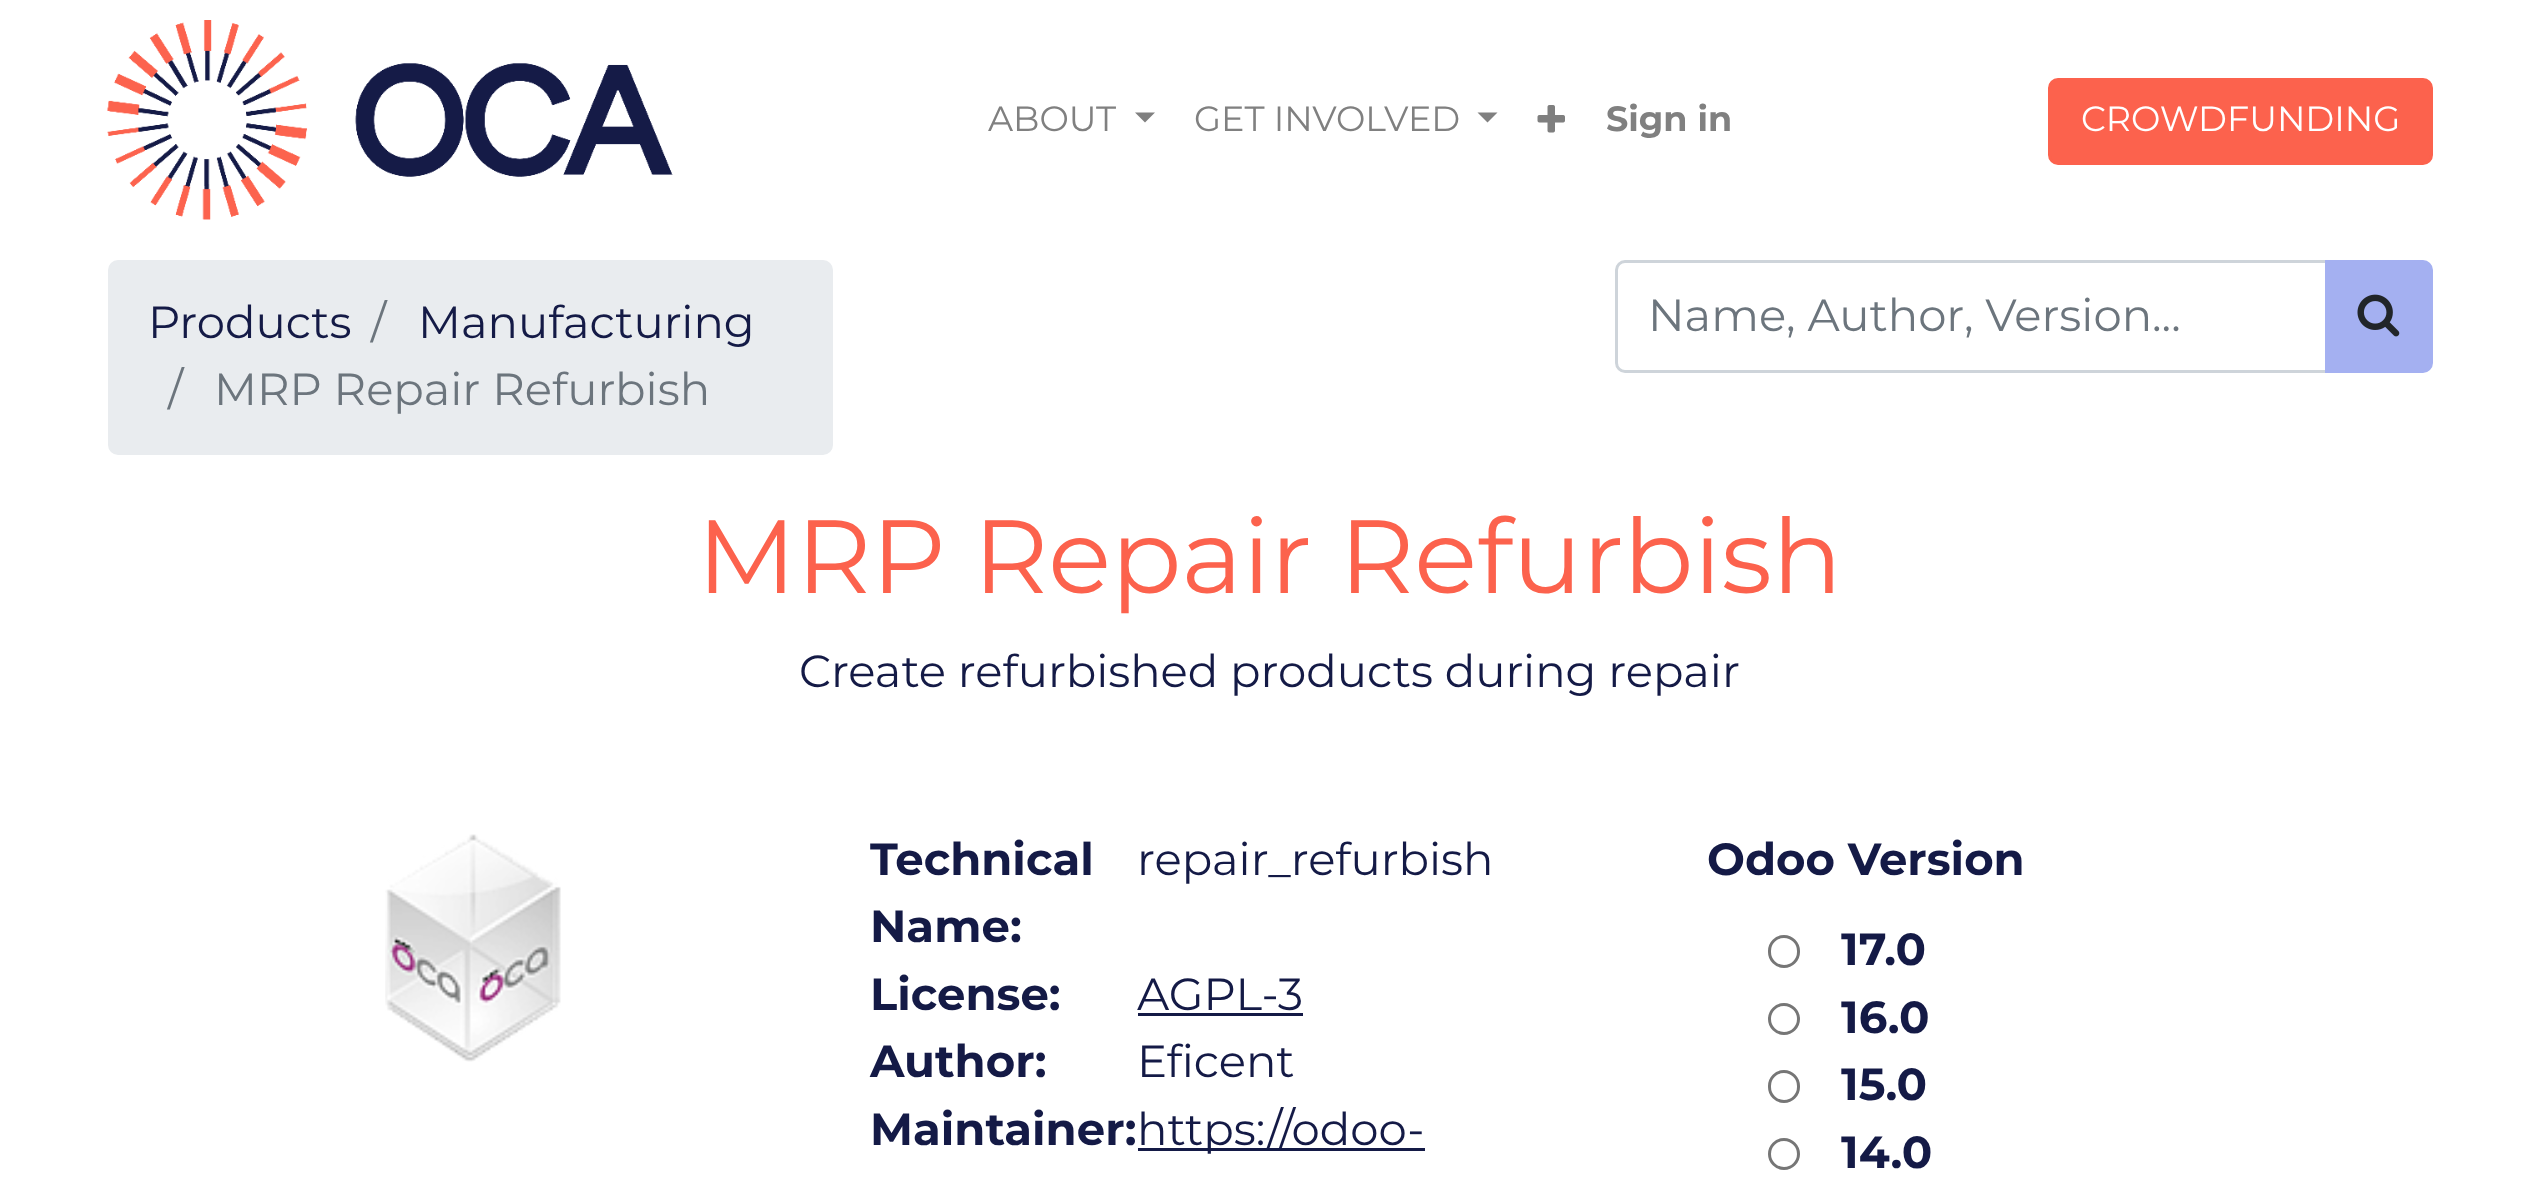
<svg xmlns="http://www.w3.org/2000/svg" width="2538" height="1185" viewBox="0 0 2538 1185">
  <rect width="100%" height="100%" fill="#ffffff"/>
  <image x="107" y="20" width="566" height="200" href="img1.png"/>
  <text x="988" y="131" font-family="Montserrat" font-size="35" fill="#808080">ABOUT</text>
  <path d="M1135 112.5H1155L1145 122.5Z" fill="#808080"/>
  <text x="1194" y="131" font-family="Montserrat" font-size="35" fill="#808080">GET INVOLVED</text>
  <path d="M1477.5 112.5H1497.5L1487.5 122.5Z" fill="#808080"/>
  <image x="1537" y="105" width="28" height="28" href="img2.png"/>
  <text x="1606" y="131" font-family="Montserrat" font-size="35" font-weight="bold" fill="#808080">Sign in</text>
  <rect x="2049.5" y="79.5" width="382" height="84" rx="8.5" fill="#fc624d" stroke="#fc624d" stroke-width="3"/>
  <text x="2081" y="131" font-family="Montserrat" font-size="35" fill="#ffffff">CROWDFUNDING</text>
  <rect x="108" y="260" width="725" height="195" rx="10" fill="#e9ecef"/>
  <text x="148" y="338" font-family="Montserrat" font-size="45" fill="#141a46">Products</text>
  <text x="371" y="338" font-family="Montserrat" font-size="45" fill="#6c757d">/</text>
  <text x="418" y="338" font-family="Montserrat" font-size="45" fill="#141a46">Manufacturing</text>
  <text x="168" y="405" font-family="Montserrat" font-size="45" fill="#6c757d">/</text>
  <text x="214" y="405" font-family="Montserrat" font-size="45" fill="#6c757d">MRP Repair Refurbish</text>
  <path d="M1625 261.5H2326.5V371.5H1625C1620.5 371.5 1616.5 367.5 1616.5 363V270C1616.5 265.5 1620.5 261.5 1625 261.5Z" fill="none" stroke="#ced4da" stroke-width="3"/>
  <text x="1648" y="331" font-family="Montserrat" font-size="45" fill="#6c757d">Name, Author, Version...</text>
  <path d="M2326.5 261.5H2423C2427.5 261.5 2431.5 265.5 2431.5 270V363C2431.5 367.5 2427.5 371.5 2423 371.5H2326.5Z" fill="#a4b0f1" stroke="#a4b0f1" stroke-width="3"/>
  <image x="2357" y="294" width="43" height="43" href="img3.png"/>
  <text x="697" y="593" font-family="Montserrat" font-size="103.9" fill="#fc624d">MRP Repair Refurbish</text>
  <text x="799" y="687" font-family="Montserrat" font-size="45" fill="#141a46">Create refurbished products during repair</text>
  <image x="385" y="834" width="176" height="228" href="img4.png"/>
  <text x="870" y="875" font-family="Montserrat" font-size="45" font-weight="bold" fill="#141a46">Technical</text>
  <text x="870" y="942" font-family="Montserrat" font-size="45" font-weight="bold" fill="#141a46">Name:</text>
  <text x="1137" y="875" font-family="Montserrat" font-size="45" fill="#141a46">repair_refurbish</text>
  <text x="870" y="1010" font-family="Montserrat" font-size="45" font-weight="bold" fill="#141a46">License:</text>
  <text x="1137" y="1010" font-family="Montserrat" font-size="45" fill="#141a46">AGPL-3</text>
  <rect x="1138" y="1013" width="165" height="3" fill="#141a46"/>
  <text x="870" y="1077" font-family="Montserrat" font-size="45" font-weight="bold" fill="#141a46">Author:</text>
  <text x="1137" y="1077" font-family="Montserrat" font-size="45" fill="#141a46">Eficent</text>
  <text x="870" y="1145" font-family="Montserrat" font-size="45" font-weight="bold" fill="#141a46">Maintainer:</text>
  <rect x="1138" y="1148" width="287" height="3" fill="#141a46"/>
  <text x="1137" y="1145" font-family="Montserrat" font-size="45" fill="#141a46">https://odoo-</text>
  <text x="1707" y="875" font-family="Montserrat" font-size="45" font-weight="bold" fill="#141a46">Odoo Version</text>
  <rect x="1769.5" y="936.5" width="29" height="30" rx="14.5" fill="none" stroke="#767676" stroke-width="3"/>
  <text x="1841" y="965" font-family="Montserrat" font-size="45" font-weight="bold" fill="#141a46">17.0</text>
  <circle cx="1784" cy="1019" r="14.5" fill="none" stroke="#767676" stroke-width="3"/>
  <text x="1841" y="1033" font-family="Montserrat" font-size="45" font-weight="bold" fill="#141a46">16.0</text>
  <rect x="1769.5" y="1071.5" width="29" height="30" rx="14.5" fill="none" stroke="#767676" stroke-width="3"/>
  <text x="1841" y="1100" font-family="Montserrat" font-size="45" font-weight="bold" fill="#141a46">15.0</text>
  <circle cx="1784" cy="1154" r="14.5" fill="none" stroke="#767676" stroke-width="3"/>
  <text x="1841" y="1168" font-family="Montserrat" font-size="45" font-weight="bold" fill="#141a46">14.0</text>
</svg>
